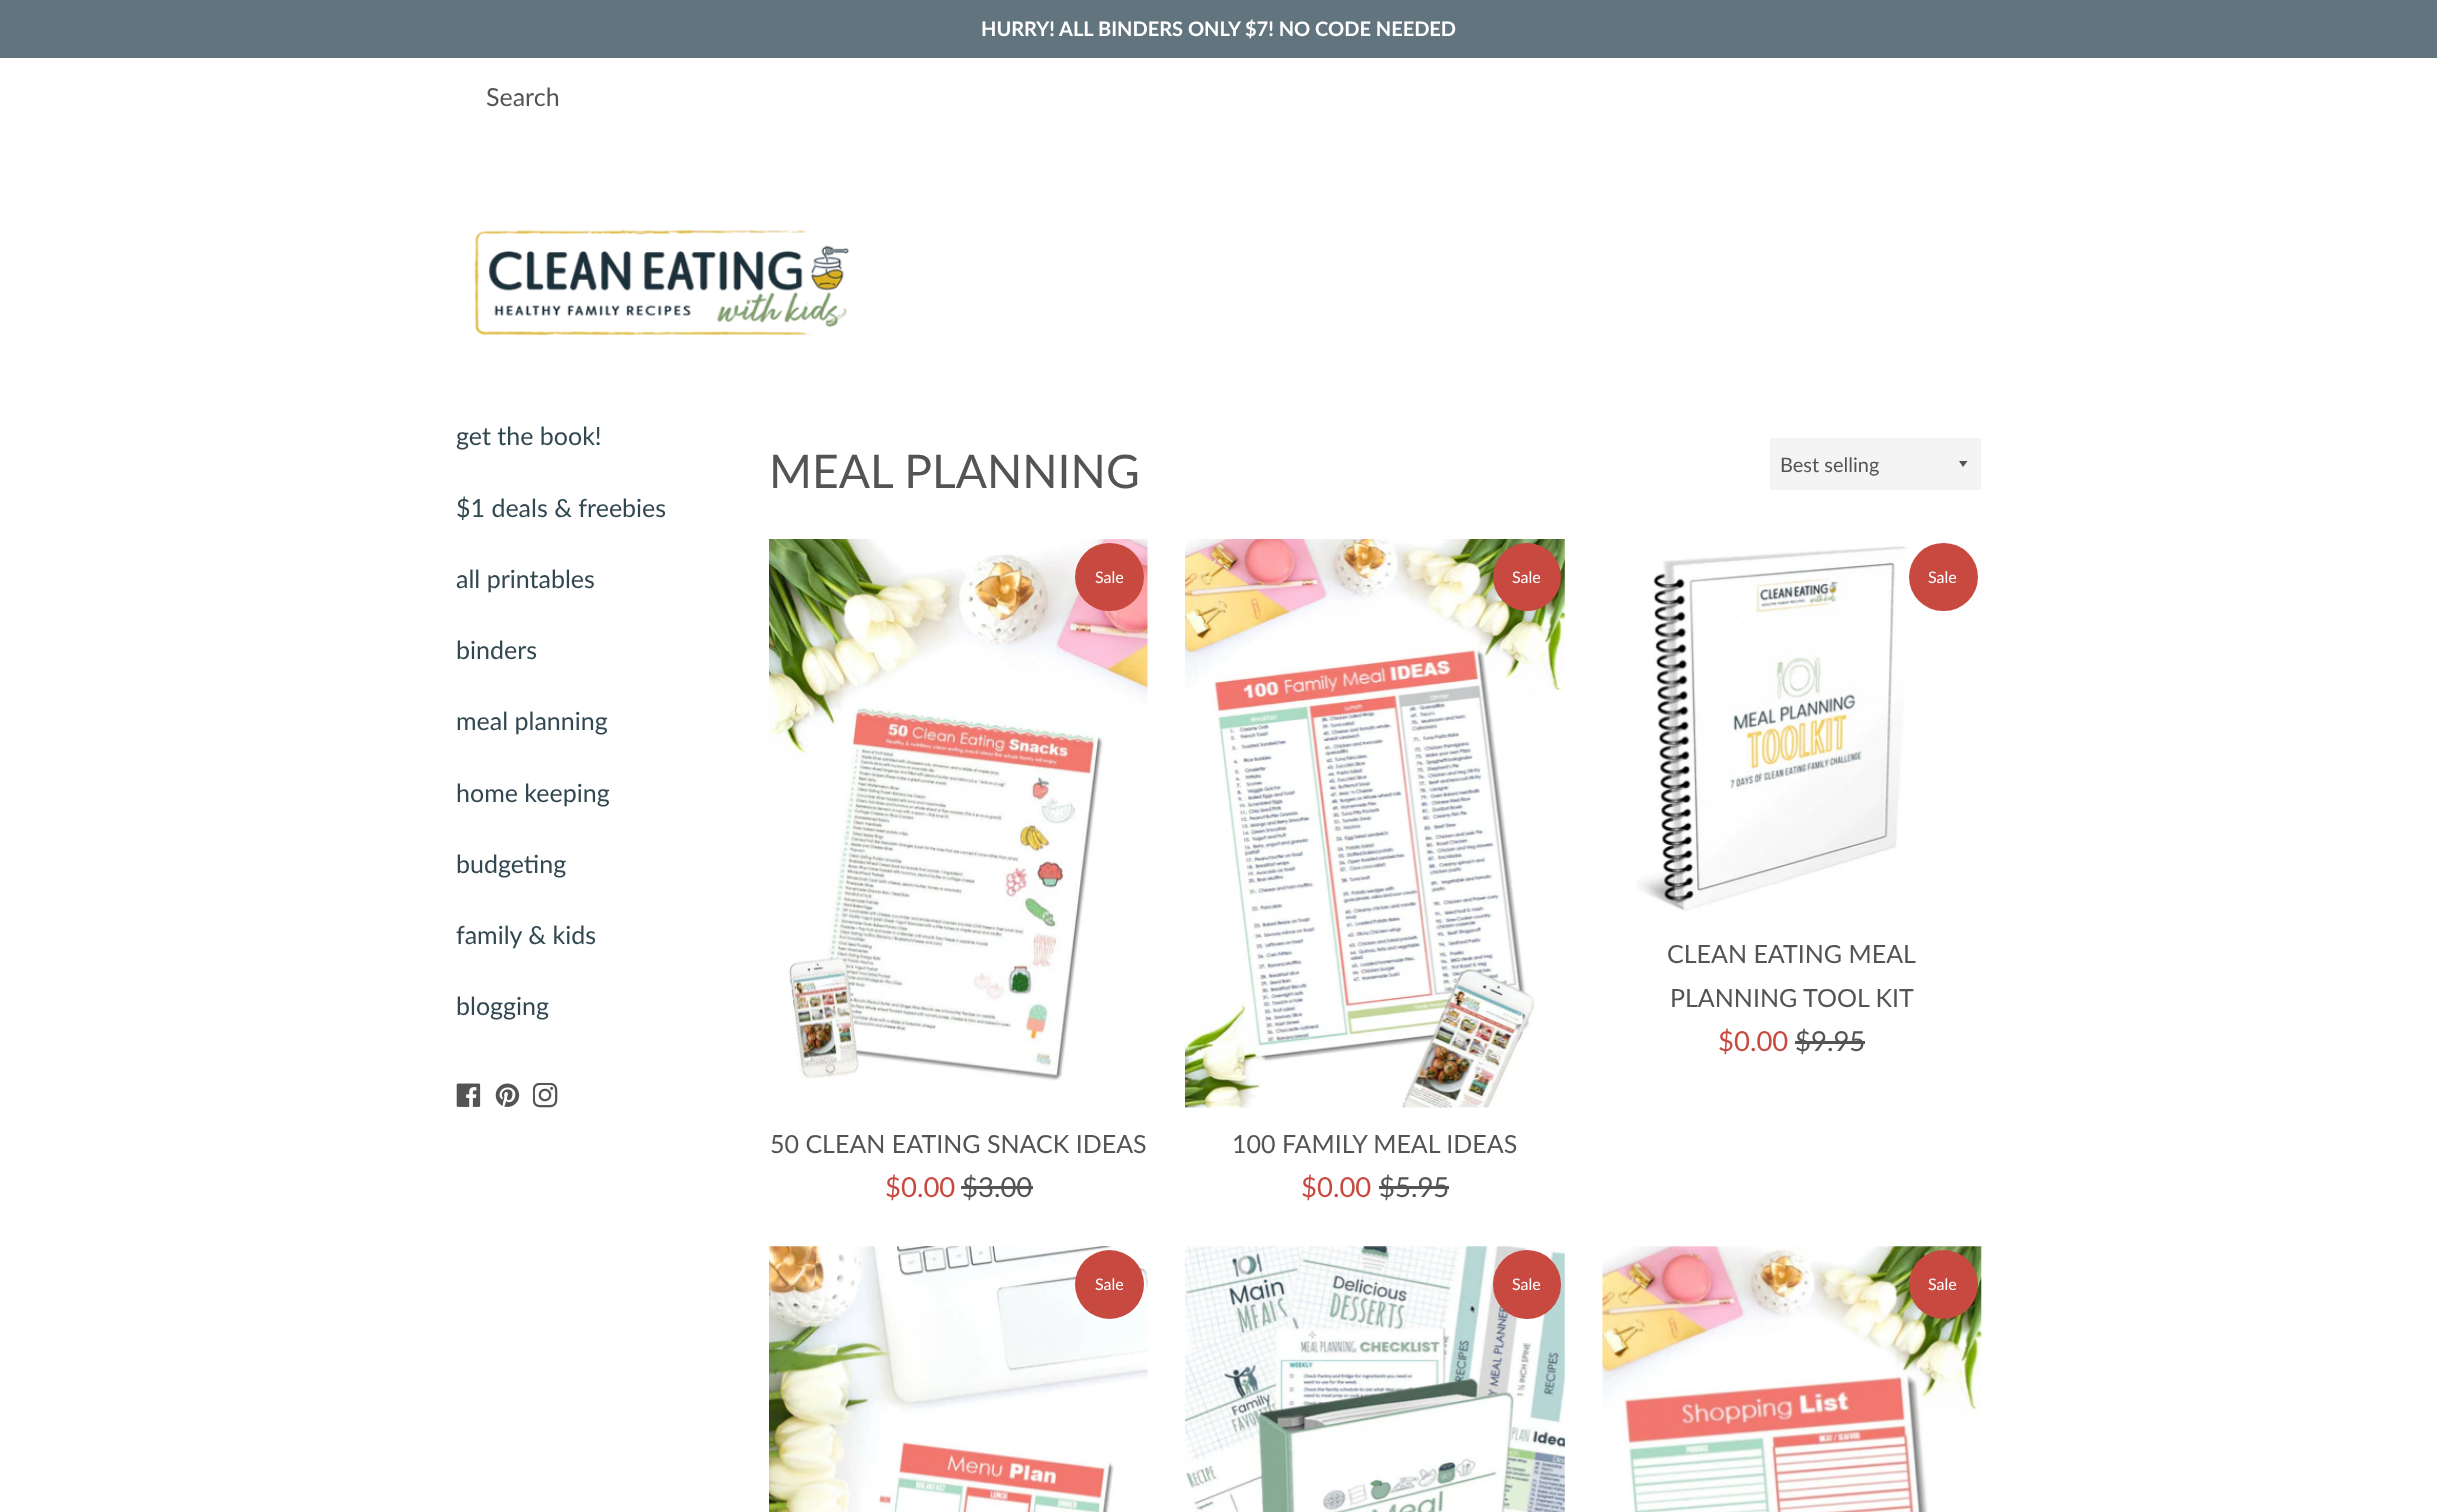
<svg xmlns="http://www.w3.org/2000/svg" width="2437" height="1512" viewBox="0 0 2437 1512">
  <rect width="100%" height="100%" fill="#ffffff"/>
  <rect x="0" y="0" width="2437" height="58" fill="#62757e"/>
  <text x="981" y="36" font-family="Lato" font-size="20" font-weight="bold" fill="#ffffff">HURRY! ALL BINDERS ONLY $7! NO CODE NEEDED</text>
  <text x="486" y="106" font-family="Lato" font-size="25" fill="#545452">Search</text>
  <image x="474" y="229" width="375" height="107" href="img1.png"/>
  <text x="456" y="445" font-family="Lato" font-size="25" fill="#324850">get the book!</text>
  <text x="456" y="517" font-family="Lato" font-size="25" fill="#324850">$1 deals &amp; freebies</text>
  <text x="456" y="588" font-family="Lato" font-size="25" fill="#324850">all printables</text>
  <text x="456" y="659" font-family="Lato" font-size="25" fill="#324850">binders</text>
  <text x="456" y="730" font-family="Lato" font-size="25" fill="#324850">meal planning</text>
  <text x="456" y="802" font-family="Lato" font-size="25" fill="#324850">home keeping</text>
  <text x="456" y="873" font-family="Lato" font-size="25" fill="#324850">budgeting</text>
  <text x="456" y="944" font-family="Lato" font-size="25" fill="#324850">family &amp; kids</text>
  <text x="456" y="1015" font-family="Lato" font-size="25" fill="#324850">blogging</text>
  <image x="456" y="1083" width="25" height="24" href="img2.png"/>
  <image x="495" y="1083" width="25" height="24" href="img3.png"/>
  <image x="533" y="1083" width="25" height="25" href="img4.png"/>
  <text x="769" y="488" font-family="Lato" font-size="46.25" fill="#545452">MEAL PLANNING</text>
  <rect x="1770" y="438" width="211" height="52" fill="#f4f4f4"/>
  <path d="M1959 461L1963 467L1967.5 461Z" fill="#545452"/>
  <text x="1780" y="472" font-family="Lato" font-size="20" fill="#545452">Best selling</text>
  <image x="769" y="539" width="379" height="542" href="img5.png"/>
  <rect x="1075" y="543" width="69" height="68" rx="34" fill="#c8493f"/>
  <text x="1095" y="583" font-family="Lato" font-size="16" fill="#ffffff">Sale</text>
  <text x="885" y="1197" font-family="Lato" font-size="27.5" fill="#c8493f">$0.00</text>
  <text x="962" y="1197" font-family="Lato" font-size="27.5" fill="#545452">$3.00</text>
  <rect x="961" y="1186" width="72" height="3" fill="#545452"/>
  <text x="770" y="1153" font-family="Lato" font-size="25" fill="#545452">50 CLEAN EATING SNACK IDEAS</text>
  <image x="1185" y="539" width="380" height="569" href="img6.png"/>
  <circle cx="1527" cy="577" r="34" fill="#c8493f"/>
  <text x="1512" y="583" font-family="Lato" font-size="16" fill="#ffffff">Sale</text>
  <text x="1301" y="1197" font-family="Lato" font-size="27.5" fill="#c8493f">$0.00</text>
  <text x="1379" y="1197" font-family="Lato" font-size="27.5" fill="#545452">$5.95</text>
  <rect x="1379" y="1186" width="70" height="3" fill="#545452"/>
  <text x="1232" y="1153" font-family="Lato" font-size="25" fill="#545452">100 FAMILY MEAL IDEAS</text>
  <image x="1636" y="546" width="272" height="365" href="img7.png"/>
  <rect x="1909" y="543" width="69" height="68" rx="34" fill="#c8493f"/>
  <text x="1928" y="583" font-family="Lato" font-size="16" fill="#ffffff">Sale</text>
  <text x="1718" y="1051" font-family="Lato" font-size="27.5" fill="#c8493f">$0.00</text>
  <text x="1795" y="1051" font-family="Lato" font-size="27.5" fill="#545452">$9.95</text>
  <rect x="1795" y="1041" width="70" height="3" fill="#545452"/>
  <text x="1667" y="963" font-family="Lato" font-size="25" fill="#545452">CLEAN EATING MEAL</text>
  <text x="1670" y="1007" font-family="Lato" font-size="25" fill="#545452">PLANNING TOOL KIT</text>
  <image x="769" y="1246" width="379" height="266" href="img8.png"/>
  <circle cx="1109.5" cy="1284.5" r="34.5" fill="#c8493f"/>
  <text x="1095" y="1290" font-family="Lato" font-size="16" fill="#ffffff">Sale</text>
  <image x="1185" y="1246" width="380" height="266" href="img9.png"/>
  <rect x="1493" y="1250" width="68" height="69" rx="34" fill="#c8493f"/>
  <text x="1512" y="1290" font-family="Lato" font-size="16" fill="#ffffff">Sale</text>
  <image x="1602" y="1246" width="380" height="266" href="img10.png"/>
  <circle cx="1943.5" cy="1284.5" r="34.5" fill="#c8493f"/>
  <text x="1928" y="1290" font-family="Lato" font-size="16" fill="#ffffff">Sale</text>
</svg>
